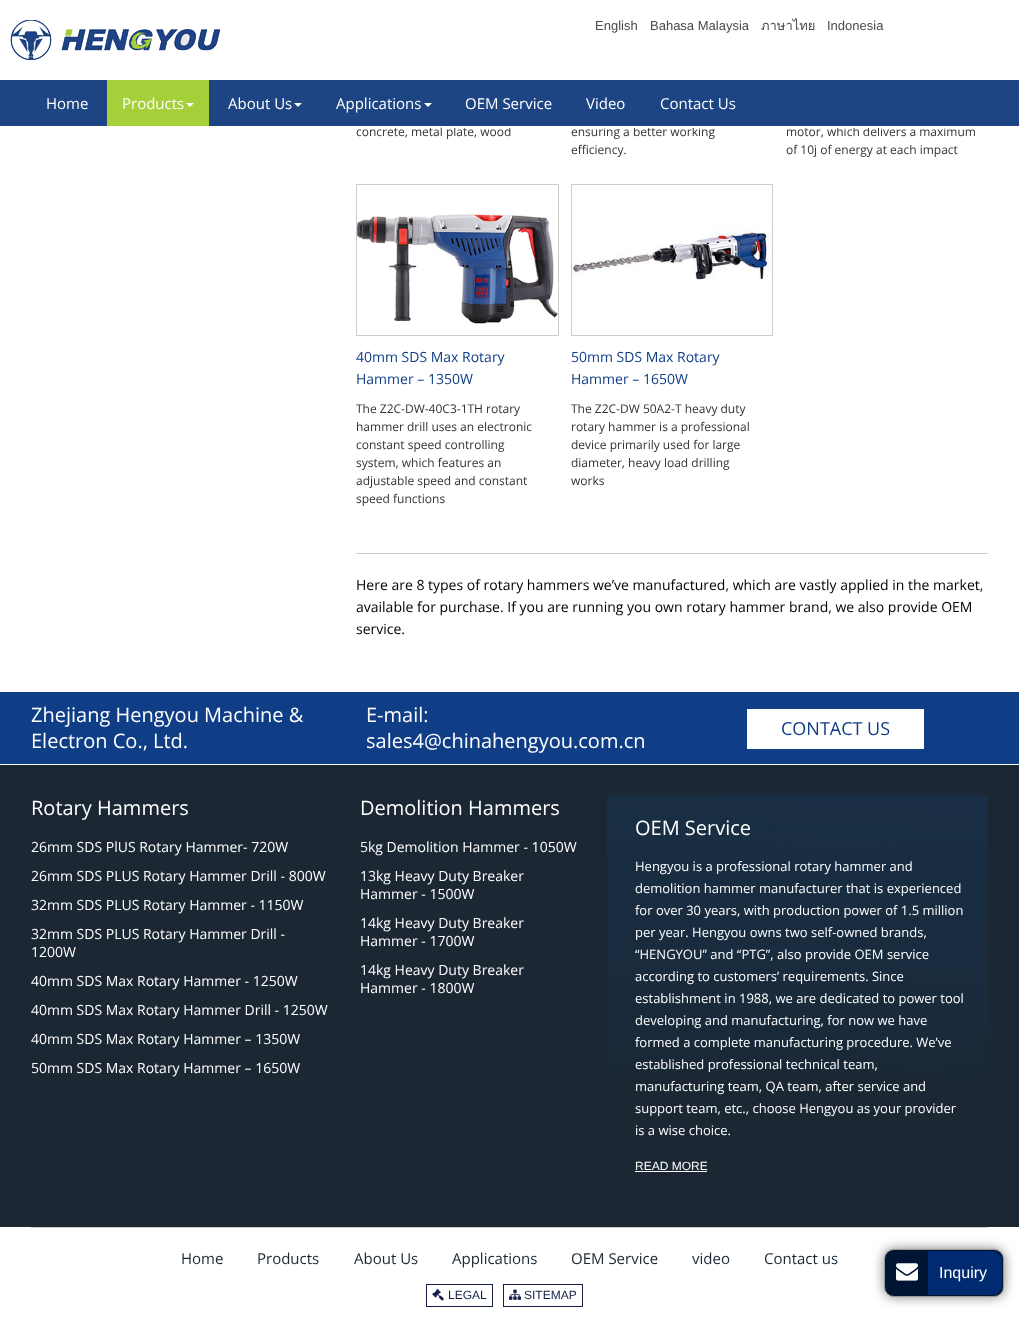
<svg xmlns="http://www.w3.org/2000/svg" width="1019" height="1327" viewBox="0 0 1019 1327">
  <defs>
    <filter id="blur1" x="-50%" y="-200%" width="200%" height="500%"><feGaussianBlur stdDeviation="6"/></filter>
  </defs>
  <rect width="100%" height="100%" fill="#ffffff"/>
  <image x="10" y="20" width="211" height="40" href="img1.png"/>
  <text x="595" y="30" font-family="Liberation Sans" font-size="13" fill="#4a4a4a">English</text>
  <text x="650" y="30" font-family="Liberation Sans" font-size="13" fill="#4a4a4a">Bahasa Malaysia</text>
  <text x="761" y="30" font-family="Loma" font-size="13" fill="#4a4a4a">ภาษาไทย</text>
  <text x="827" y="30" font-family="Liberation Sans" font-size="13" fill="#4a4a4a">Indonesia</text>
  <rect x="0" y="80" width="1019" height="46" fill="#1d4583"/>
  <text x="356" y="136" font-family="Open Sans" font-size="12" fill="#333333">concrete, metal plate, wood</text>
  <text x="571" y="136" font-family="Open Sans" font-size="12" fill="#333333">ensuring a better working</text>
  <text x="786" y="136" font-family="Open Sans" font-size="12" fill="#333333">motor, which delivers a maximum</text>
  <rect x="441" y="126" width="505" height="2" fill="#ffffff"/>
  <text x="46" y="109" font-family="Open Sans" font-size="15" fill="#ffffff">Home</text>
  <rect x="107" y="80" width="102" height="46" fill="#a5d03a"/>
  <text x="122" y="109" font-family="Open Sans" font-size="15" fill="#ffffff">Products</text>
  <path d="M186 103H194L190 107Z" fill="#ffffff"/>
  <text x="228" y="109" font-family="Open Sans" font-size="15" fill="#ffffff">About Us</text>
  <path d="M294 103H302L298 107Z" fill="#ffffff"/>
  <text x="336" y="109" font-family="Open Sans" font-size="15" fill="#ffffff">Applications</text>
  <path d="M424 103H432L428 107Z" fill="#ffffff"/>
  <text x="465" y="109" font-family="Open Sans" font-size="15" fill="#ffffff">OEM Service</text>
  <text x="586" y="109" font-family="Open Sans" font-size="15" fill="#ffffff">Video</text>
  <text x="660" y="109" font-family="Open Sans" font-size="15" fill="#ffffff">Contact Us</text>
  <rect x="356" y="553" width="632" height="1" fill="#cccccc"/>
  <text x="571" y="154" font-family="Open Sans" font-size="12" fill="#333333">efficiency.</text>
  <text x="786" y="154" font-family="Open Sans" font-size="12" fill="#333333">of 10j of energy at each impact</text>
  <rect x="356.5" y="184.5" width="202" height="151" fill="none" stroke="#cccccc"/>
  <image x="357" y="214" width="201" height="110" href="img2.png"/>
  <text x="356" y="362" font-family="Open Sans" font-size="14" fill="#0f3e87">40mm SDS Max Rotary</text>
  <text x="356" y="384" font-family="Open Sans" font-size="14" fill="#0f3e87">Hammer – 1350W</text>
  <text x="356" y="413" font-family="Open Sans" font-size="12" fill="#333333">The Z2C-DW-40C3-1TH rotary</text>
  <text x="356" y="431" font-family="Open Sans" font-size="12" fill="#333333">hammer drill uses an electronic</text>
  <text x="356" y="449" font-family="Open Sans" font-size="12" fill="#333333">constant speed controlling</text>
  <text x="356" y="467" font-family="Open Sans" font-size="12" fill="#333333">system, which features an</text>
  <text x="356" y="485" font-family="Open Sans" font-size="12" fill="#333333">adjustable speed and constant</text>
  <text x="356" y="503" font-family="Open Sans" font-size="12" fill="#333333">speed functions</text>
  <rect x="571.5" y="184.5" width="201" height="151" fill="none" stroke="#cccccc"/>
  <image x="572" y="227" width="200" height="54" href="img3.png"/>
  <text x="571" y="362" font-family="Open Sans" font-size="14" fill="#0f3e87">50mm SDS Max Rotary</text>
  <text x="571" y="384" font-family="Open Sans" font-size="14" fill="#0f3e87">Hammer – 1650W</text>
  <text x="571" y="413" font-family="Open Sans" font-size="12" fill="#333333">The Z2C-DW 50A2-T heavy duty</text>
  <text x="571" y="431" font-family="Open Sans" font-size="12" fill="#333333">rotary hammer is a professional</text>
  <text x="571" y="449" font-family="Open Sans" font-size="12" fill="#333333">device primarily used for large</text>
  <text x="571" y="467" font-family="Open Sans" font-size="12" fill="#333333">diameter, heavy load drilling</text>
  <text x="571" y="485" font-family="Open Sans" font-size="12" fill="#333333">works</text>
  <text x="356" y="590" font-family="Open Sans" font-size="14" fill="#000000">Here are 8 types of rotary hammers we’ve manufactured, which are vastly applied in the market,</text>
  <text x="356" y="612" font-family="Open Sans" font-size="14" fill="#000000">available for purchase. If you are running you own rotary hammer brand, we also provide OEM</text>
  <text x="356" y="634" font-family="Open Sans" font-size="14" fill="#000000">service.</text>
  <rect x="0" y="692" width="1019" height="72" fill="#0f3e87"/>
  <text x="31" y="722" font-family="Open Sans" font-size="20" fill="#ffffff">Zhejiang Hengyou Machine &amp;</text>
  <text x="31" y="748" font-family="Open Sans" font-size="20" fill="#ffffff">Electron Co., Ltd.</text>
  <text x="366" y="722" font-family="Open Sans" font-size="20" fill="#ffffff">E-mail:</text>
  <text x="366" y="748" font-family="Open Sans" font-size="20" fill="#ffffff">sales4@chinahengyou.com.cn</text>
  <rect x="747" y="709" width="177" height="40" fill="#ffffff"/>
  <text x="781" y="735" font-family="Open Sans" font-size="18" fill="#0f3e87">CONTACT US</text>
  <rect x="0" y="765" width="1019" height="462" fill="#1b2733"/>
  <text x="31" y="815" font-family="Open Sans" font-size="20" fill="#ffffff">Rotary Hammers</text>
  <text x="31" y="852" font-family="Open Sans" font-size="14" fill="#ffffff">26mm SDS PlUS Rotary Hammer- 720W</text>
  <text x="31" y="881" font-family="Open Sans" font-size="14" fill="#ffffff">26mm SDS PLUS Rotary Hammer Drill - 800W</text>
  <text x="31" y="910" font-family="Open Sans" font-size="14" fill="#ffffff">32mm SDS PLUS Rotary Hammer - 1150W</text>
  <text x="31" y="939" font-family="Open Sans" font-size="14" fill="#ffffff">32mm SDS PLUS Rotary Hammer Drill -</text>
  <text x="31" y="957" font-family="Open Sans" font-size="14" fill="#ffffff">1200W</text>
  <text x="31" y="986" font-family="Open Sans" font-size="14" fill="#ffffff">40mm SDS Max Rotary Hammer - 1250W</text>
  <text x="31" y="1015" font-family="Open Sans" font-size="14" fill="#ffffff">40mm SDS Max Rotary Hammer Drill - 1250W</text>
  <text x="31" y="1044" font-family="Open Sans" font-size="14" fill="#ffffff">40mm SDS Max Rotary Hammer – 1350W</text>
  <text x="31" y="1073" font-family="Open Sans" font-size="14" fill="#ffffff">50mm SDS Max Rotary Hammer – 1650W</text>
  <text x="360" y="815" font-family="Open Sans" font-size="20" fill="#ffffff">Demolition Hammers</text>
  <text x="360" y="852" font-family="Open Sans" font-size="14" fill="#ffffff">5kg Demolition Hammer - 1050W</text>
  <text x="360" y="881" font-family="Open Sans" font-size="14" fill="#ffffff">13kg Heavy Duty Breaker</text>
  <text x="360" y="899" font-family="Open Sans" font-size="14" fill="#ffffff">Hammer - 1500W</text>
  <text x="360" y="928" font-family="Open Sans" font-size="14" fill="#ffffff">14kg Heavy Duty Breaker</text>
  <text x="360" y="946" font-family="Open Sans" font-size="14" fill="#ffffff">Hammer - 1700W</text>
  <text x="360" y="975" font-family="Open Sans" font-size="14" fill="#ffffff">14kg Heavy Duty Breaker</text>
  <text x="360" y="993" font-family="Open Sans" font-size="14" fill="#ffffff">Hammer - 1800W</text>
  <image x="607" y="795" width="381" height="283" href="img4.png"/>
  <text x="635" y="835" font-family="Open Sans" font-size="20" fill="#ffffff">OEM Service</text>
  <text x="635" y="871" font-family="Open Sans" font-size="13" fill="#ffffff">Hengyou is a professional rotary hammer and</text>
  <text x="635" y="893" font-family="Open Sans" font-size="13" fill="#ffffff">demolition hammer manufacturer that is experienced</text>
  <text x="635" y="915" font-family="Open Sans" font-size="13" fill="#ffffff">for over 30 years, with production power of 1.5 million</text>
  <text x="635" y="937" font-family="Open Sans" font-size="13" fill="#ffffff">per year. Hengyou owns two self-owned brands,</text>
  <text x="635" y="959" font-family="Open Sans" font-size="13" fill="#ffffff">“HENGYOU” and “PTG”, also provide OEM service</text>
  <text x="635" y="981" font-family="Open Sans" font-size="13" fill="#ffffff">according to customers’ requirements. Since</text>
  <text x="635" y="1003" font-family="Open Sans" font-size="13" fill="#ffffff">establishment in 1988, we are dedicated to power tool</text>
  <text x="635" y="1025" font-family="Open Sans" font-size="13" fill="#ffffff">developing and manufacturing, for now we have</text>
  <text x="635" y="1047" font-family="Open Sans" font-size="13" fill="#ffffff">formed a complete manufacturing procedure. We’ve</text>
  <text x="635" y="1069" font-family="Open Sans" font-size="13" fill="#ffffff">established professional technical team,</text>
  <text x="635" y="1091" font-family="Open Sans" font-size="13" fill="#ffffff">manufacturing team, QA team, after service and</text>
  <text x="635" y="1113" font-family="Open Sans" font-size="13" fill="#ffffff">support team, etc., choose Hengyou as your provider</text>
  <text x="635" y="1135" font-family="Open Sans" font-size="13" fill="#ffffff">is a wise choice.</text>
  <text x="635" y="1170" font-family="Liberation Sans" font-size="12" fill="#ffffff">READ MORE</text>
  <rect x="635" y="1171" width="72" height="1" fill="#ffffff"/>
  <rect x="31" y="1227" width="957" height="1" fill="#cccccc"/>
  <text x="181" y="1264" font-family="Open Sans" font-size="15" fill="#1b2733">Home</text>
  <text x="257" y="1264" font-family="Open Sans" font-size="15" fill="#1b2733">Products</text>
  <text x="354" y="1264" font-family="Open Sans" font-size="15" fill="#1b2733">About Us</text>
  <text x="452" y="1264" font-family="Open Sans" font-size="15" fill="#1b2733">Applications</text>
  <text x="571" y="1264" font-family="Open Sans" font-size="15" fill="#1b2733">OEM Service</text>
  <text x="692" y="1264" font-family="Open Sans" font-size="15" fill="#1b2733">video</text>
  <text x="764" y="1264" font-family="Open Sans" font-size="15" fill="#1b2733">Contact us</text>
  <rect x="426.5" y="1284.5" width="66" height="22" fill="none" stroke="#151f48"/>
  <image x="432" y="1289" width="12" height="12" href="img5.png"/>
  <text x="448" y="1299" font-family="Liberation Sans" font-size="12" fill="#151f48">LEGAL</text>
  <rect x="503.5" y="1284.5" width="79" height="22" fill="none" stroke="#151f48"/>
  <image x="509" y="1289" width="12" height="11" href="img6.png"/>
  <text x="524" y="1299" font-family="Liberation Sans" font-size="12" fill="#151f48">SITEMAP</text>
  <rect x="884" y="1249" width="120" height="48" rx="10" fill="#000000" fill-opacity="0.5" filter="url(#blur1)"/>
  <rect x="884.5" y="1249.5" width="119" height="47" rx="9.5" fill="#001434" stroke="#999999"/>
  <image x="896" y="1263" width="22" height="18" href="img7.png"/>
  <path d="M928 1251H992C997.5 1251 1002 1255.5 1002 1261V1285C1002 1290.5 997.5 1295 992 1295H928Z" fill="#002b70"/>
  <text x="939" y="1278" font-family="Liberation Sans" font-size="16" fill="#ffffff">Inquiry</text>
</svg>
